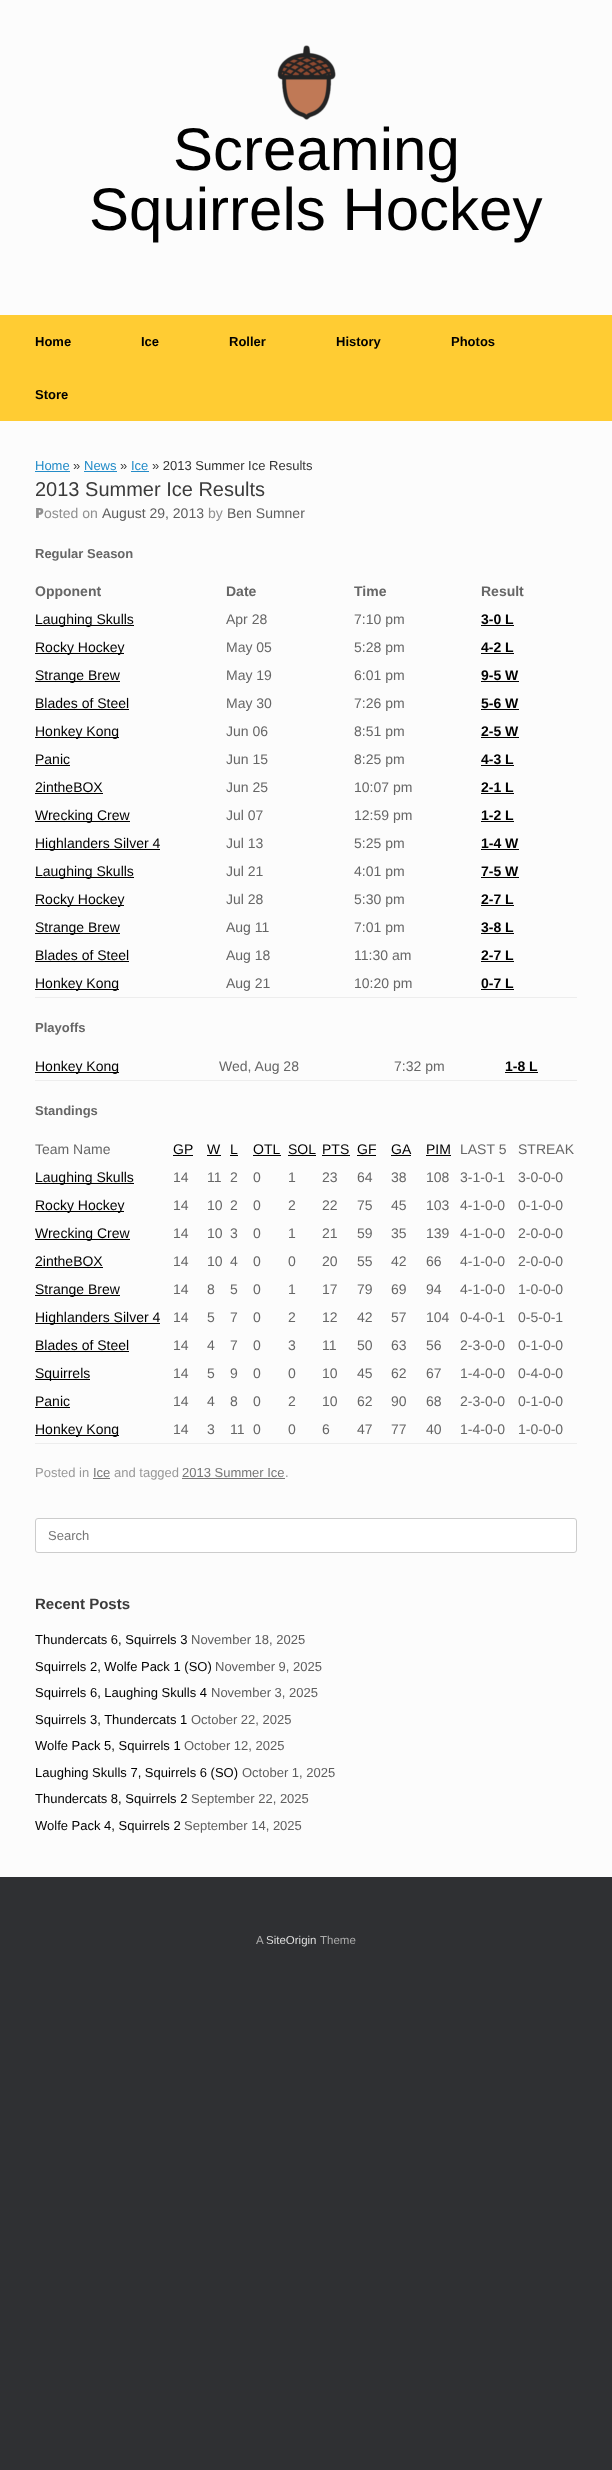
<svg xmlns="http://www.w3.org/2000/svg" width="612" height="2470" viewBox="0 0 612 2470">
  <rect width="100%" height="100%" fill="#2f3033"/>
  <rect x="0" y="0" width="612" height="315" fill="#fcfcfc"/>
  <image x="277" y="45" width="59" height="75" href="img1.png"/>
  <text x="173" y="170" font-family="Liberation Sans" font-size="60" fill="#000000">Screaming</text>
  <text x="89" y="230" font-family="Liberation Sans" font-size="60" fill="#000000">Squirrels Hockey</text>
  <rect x="0" y="315" width="612" height="106" fill="#ffcc33"/>
  <text x="35" y="346" font-family="Liberation Sans" font-size="13" font-weight="bold" fill="#000000">Home</text>
  <text x="141" y="346" font-family="Liberation Sans" font-size="13" font-weight="bold" fill="#000000">Ice</text>
  <text x="229" y="346" font-family="Liberation Sans" font-size="13" font-weight="bold" fill="#000000">Roller</text>
  <text x="336" y="346" font-family="Liberation Sans" font-size="13" font-weight="bold" fill="#000000">History</text>
  <text x="451" y="346" font-family="Liberation Sans" font-size="13" font-weight="bold" fill="#000000">Photos</text>
  <text x="35" y="399" font-family="Liberation Sans" font-size="13" font-weight="bold" fill="#000000">Store</text>
  <rect x="0" y="421" width="612" height="1456" fill="#fcfcfc"/>
  <text x="35" y="470" font-family="Liberation Sans" font-size="13" fill="#248cc8">Home</text>
  <rect x="35" y="471" width="35" height="1" fill="#248cc8"/>
  <text x="73" y="470" font-family="Liberation Sans" font-size="13" fill="#333333">»</text>
  <text x="84" y="470" font-family="Liberation Sans" font-size="13" fill="#248cc8">News</text>
  <rect x="84" y="471" width="33" height="1" fill="#248cc8"/>
  <text x="120" y="470" font-family="Liberation Sans" font-size="13" fill="#333333">»</text>
  <text x="131" y="470" font-family="Liberation Sans" font-size="13" fill="#248cc8">Ice</text>
  <rect x="131" y="471" width="18" height="1" fill="#248cc8"/>
  <text x="152" y="470" font-family="Liberation Sans" font-size="13" fill="#333333">» 2013 Summer Ice Results</text>
  <text x="35" y="496" font-family="Liberation Sans" font-size="20" fill="#3b3b3b">2013 Summer Ice Results</text>
  <text x="35" y="518" font-family="Noto Sans" font-size="14" font-weight="900" fill="#8f8f8f">P</text>
  <text x="44" y="518" font-family="Liberation Sans" font-size="14" fill="#8f8f8f">osted on</text>
  <text x="102" y="518" font-family="Liberation Sans" font-size="14" fill="#5e5e5e">August 29, 2013</text>
  <text x="208" y="518" font-family="Liberation Sans" font-size="14" fill="#8f8f8f">by</text>
  <text x="227" y="518" font-family="Liberation Sans" font-size="14" fill="#5e5e5e">Ben Sumner</text>
  <text x="35" y="558" font-family="Liberation Sans" font-size="13" font-weight="bold" fill="#666666">Regular Season</text>
  <rect x="35" y="997" width="542" height="1" fill="#ededed"/>
  <text x="35" y="596" font-family="Liberation Sans" font-size="14" font-weight="bold" fill="#666666">Opponent</text>
  <text x="226" y="596" font-family="Liberation Sans" font-size="14" font-weight="bold" fill="#666666">Date</text>
  <text x="354" y="596" font-family="Liberation Sans" font-size="14" font-weight="bold" fill="#666666">Time</text>
  <text x="481" y="596" font-family="Liberation Sans" font-size="14" font-weight="bold" fill="#666666">Result</text>
  <rect x="35" y="625" width="99" height="1" fill="#000000"/>
  <text x="35" y="624" font-family="Liberation Sans" font-size="14" fill="#000000">Laughing Skulls</text>
  <text x="226" y="624" font-family="Liberation Sans" font-size="14" fill="#666666">Apr 28</text>
  <text x="354" y="624" font-family="Liberation Sans" font-size="14" fill="#666666">7:10 pm</text>
  <text x="481" y="624" font-family="Liberation Sans" font-size="14" font-weight="bold" fill="#000000">3-0 L</text>
  <rect x="481" y="625" width="33" height="1" fill="#000000"/>
  <rect x="35" y="653" width="89" height="1" fill="#000000"/>
  <text x="35" y="652" font-family="Liberation Sans" font-size="14" fill="#000000">Rocky Hockey</text>
  <text x="226" y="652" font-family="Liberation Sans" font-size="14" fill="#666666">May 05</text>
  <text x="354" y="652" font-family="Liberation Sans" font-size="14" fill="#666666">5:28 pm</text>
  <text x="481" y="652" font-family="Liberation Sans" font-size="14" font-weight="bold" fill="#000000">4-2 L</text>
  <rect x="481" y="653" width="33" height="1" fill="#000000"/>
  <rect x="35" y="681" width="85" height="1" fill="#000000"/>
  <text x="35" y="680" font-family="Liberation Sans" font-size="14" fill="#000000">Strange Brew</text>
  <text x="226" y="680" font-family="Liberation Sans" font-size="14" fill="#666666">May 19</text>
  <text x="354" y="680" font-family="Liberation Sans" font-size="14" fill="#666666">6:01 pm</text>
  <text x="481" y="680" font-family="Liberation Sans" font-size="14" font-weight="bold" fill="#000000">9-5 W</text>
  <rect x="481" y="681" width="38" height="1" fill="#000000"/>
  <text x="35" y="708" font-family="Liberation Sans" font-size="14" fill="#000000">Blades of Steel</text>
  <rect x="35" y="709" width="94" height="1" fill="#000000"/>
  <text x="226" y="708" font-family="Liberation Sans" font-size="14" fill="#666666">May 30</text>
  <text x="354" y="708" font-family="Liberation Sans" font-size="14" fill="#666666">7:26 pm</text>
  <text x="481" y="708" font-family="Liberation Sans" font-size="14" font-weight="bold" fill="#000000">5-6 W</text>
  <rect x="481" y="709" width="38" height="1" fill="#000000"/>
  <rect x="35" y="737" width="84" height="1" fill="#000000"/>
  <text x="35" y="736" font-family="Liberation Sans" font-size="14" fill="#000000">Honkey Kong</text>
  <text x="226" y="736" font-family="Liberation Sans" font-size="14" fill="#666666">Jun 06</text>
  <text x="354" y="736" font-family="Liberation Sans" font-size="14" fill="#666666">8:51 pm</text>
  <text x="481" y="736" font-family="Liberation Sans" font-size="14" font-weight="bold" fill="#000000">2-5 W</text>
  <rect x="481" y="737" width="38" height="1" fill="#000000"/>
  <text x="35" y="764" font-family="Liberation Sans" font-size="14" fill="#000000">Panic</text>
  <rect x="35" y="765" width="35" height="1" fill="#000000"/>
  <text x="226" y="764" font-family="Liberation Sans" font-size="14" fill="#666666">Jun 15</text>
  <text x="354" y="764" font-family="Liberation Sans" font-size="14" fill="#666666">8:25 pm</text>
  <text x="481" y="764" font-family="Liberation Sans" font-size="14" font-weight="bold" fill="#000000">4-3 L</text>
  <rect x="481" y="765" width="33" height="1" fill="#000000"/>
  <text x="35" y="792" font-family="Liberation Sans" font-size="14" fill="#000000">2intheBOX</text>
  <rect x="35" y="793" width="68" height="1" fill="#000000"/>
  <text x="226" y="792" font-family="Liberation Sans" font-size="14" fill="#666666">Jun 25</text>
  <text x="354" y="792" font-family="Liberation Sans" font-size="14" fill="#666666">10:07 pm</text>
  <text x="481" y="792" font-family="Liberation Sans" font-size="14" font-weight="bold" fill="#000000">2-1 L</text>
  <rect x="481" y="793" width="33" height="1" fill="#000000"/>
  <rect x="35" y="821" width="95" height="1" fill="#000000"/>
  <text x="35" y="820" font-family="Liberation Sans" font-size="14" fill="#000000">Wrecking Crew</text>
  <text x="226" y="820" font-family="Liberation Sans" font-size="14" fill="#666666">Jul 07</text>
  <text x="354" y="820" font-family="Liberation Sans" font-size="14" fill="#666666">12:59 pm</text>
  <text x="481" y="820" font-family="Liberation Sans" font-size="14" font-weight="bold" fill="#000000">1-2 L</text>
  <rect x="481" y="821" width="33" height="1" fill="#000000"/>
  <rect x="35" y="849" width="125" height="1" fill="#000000"/>
  <text x="35" y="848" font-family="Liberation Sans" font-size="14" fill="#000000">Highlanders Silver 4</text>
  <text x="226" y="848" font-family="Liberation Sans" font-size="14" fill="#666666">Jul 13</text>
  <text x="354" y="848" font-family="Liberation Sans" font-size="14" fill="#666666">5:25 pm</text>
  <text x="481" y="848" font-family="Liberation Sans" font-size="14" font-weight="bold" fill="#000000">1-4 W</text>
  <rect x="481" y="849" width="38" height="1" fill="#000000"/>
  <rect x="35" y="877" width="99" height="1" fill="#000000"/>
  <text x="35" y="876" font-family="Liberation Sans" font-size="14" fill="#000000">Laughing Skulls</text>
  <text x="226" y="876" font-family="Liberation Sans" font-size="14" fill="#666666">Jul 21</text>
  <text x="354" y="876" font-family="Liberation Sans" font-size="14" fill="#666666">4:01 pm</text>
  <text x="481" y="876" font-family="Liberation Sans" font-size="14" font-weight="bold" fill="#000000">7-5 W</text>
  <rect x="481" y="877" width="38" height="1" fill="#000000"/>
  <rect x="35" y="905" width="89" height="1" fill="#000000"/>
  <text x="35" y="904" font-family="Liberation Sans" font-size="14" fill="#000000">Rocky Hockey</text>
  <text x="226" y="904" font-family="Liberation Sans" font-size="14" fill="#666666">Jul 28</text>
  <text x="354" y="904" font-family="Liberation Sans" font-size="14" fill="#666666">5:30 pm</text>
  <text x="481" y="904" font-family="Liberation Sans" font-size="14" font-weight="bold" fill="#000000">2-7 L</text>
  <rect x="481" y="905" width="33" height="1" fill="#000000"/>
  <rect x="35" y="933" width="85" height="1" fill="#000000"/>
  <text x="35" y="932" font-family="Liberation Sans" font-size="14" fill="#000000">Strange Brew</text>
  <text x="226" y="932" font-family="Liberation Sans" font-size="14" fill="#666666">Aug 11</text>
  <text x="354" y="932" font-family="Liberation Sans" font-size="14" fill="#666666">7:01 pm</text>
  <text x="481" y="932" font-family="Liberation Sans" font-size="14" font-weight="bold" fill="#000000">3-8 L</text>
  <rect x="481" y="933" width="33" height="1" fill="#000000"/>
  <text x="35" y="960" font-family="Liberation Sans" font-size="14" fill="#000000">Blades of Steel</text>
  <rect x="35" y="961" width="94" height="1" fill="#000000"/>
  <text x="226" y="960" font-family="Liberation Sans" font-size="14" fill="#666666">Aug 18</text>
  <text x="354" y="960" font-family="Liberation Sans" font-size="14" fill="#666666">11:30 am</text>
  <text x="481" y="960" font-family="Liberation Sans" font-size="14" font-weight="bold" fill="#000000">2-7 L</text>
  <rect x="481" y="961" width="33" height="1" fill="#000000"/>
  <rect x="35" y="989" width="84" height="1" fill="#000000"/>
  <text x="35" y="988" font-family="Liberation Sans" font-size="14" fill="#000000">Honkey Kong</text>
  <text x="226" y="988" font-family="Liberation Sans" font-size="14" fill="#666666">Aug 21</text>
  <text x="354" y="988" font-family="Liberation Sans" font-size="14" fill="#666666">10:20 pm</text>
  <text x="481" y="988" font-family="Liberation Sans" font-size="14" font-weight="bold" fill="#000000">0-7 L</text>
  <rect x="481" y="989" width="33" height="1" fill="#000000"/>
  <text x="35" y="1032" font-family="Liberation Sans" font-size="13" font-weight="bold" fill="#666666">Playoffs</text>
  <rect x="35" y="1080" width="542" height="1" fill="#ededed"/>
  <rect x="35" y="1072" width="84" height="1" fill="#000000"/>
  <text x="35" y="1071" font-family="Liberation Sans" font-size="14" fill="#000000">Honkey Kong</text>
  <text x="219" y="1071" font-family="Liberation Sans" font-size="14" fill="#666666">Wed, Aug 28</text>
  <text x="394" y="1071" font-family="Liberation Sans" font-size="14" fill="#666666">7:32 pm</text>
  <text x="505" y="1071" font-family="Liberation Sans" font-size="14" font-weight="bold" fill="#000000">1-8 L</text>
  <rect x="505" y="1072" width="33" height="1" fill="#000000"/>
  <text x="35" y="1115" font-family="Liberation Sans" font-size="13" font-weight="bold" fill="#666666">Standings</text>
  <rect x="35" y="1443" width="542" height="1" fill="#ededed"/>
  <text x="35" y="1154" font-family="Liberation Sans" font-size="14" fill="#666666">Team Name</text>
  <text x="173" y="1154" font-family="Liberation Sans" font-size="14" fill="#000000">GP</text>
  <rect x="173" y="1155" width="20" height="1" fill="#000000"/>
  <text x="207" y="1154" font-family="Liberation Sans" font-size="14" fill="#000000">W</text>
  <rect x="207" y="1155" width="14" height="1" fill="#000000"/>
  <text x="230" y="1154" font-family="Liberation Sans" font-size="14" fill="#000000">L</text>
  <rect x="230" y="1155" width="8" height="1" fill="#000000"/>
  <text x="253" y="1154" font-family="Liberation Sans" font-size="14" fill="#000000">OTL</text>
  <rect x="253" y="1155" width="28" height="1" fill="#000000"/>
  <text x="288" y="1154" font-family="Liberation Sans" font-size="14" fill="#000000">SOL</text>
  <rect x="288" y="1155" width="28" height="1" fill="#000000"/>
  <text x="322" y="1154" font-family="Liberation Sans" font-size="14" fill="#000000">PTS</text>
  <rect x="322" y="1155" width="28" height="1" fill="#000000"/>
  <text x="357" y="1154" font-family="Liberation Sans" font-size="14" fill="#000000">GF</text>
  <rect x="357" y="1155" width="19" height="1" fill="#000000"/>
  <text x="391" y="1154" font-family="Liberation Sans" font-size="14" fill="#000000">GA</text>
  <rect x="391" y="1155" width="20" height="1" fill="#000000"/>
  <text x="426" y="1154" font-family="Liberation Sans" font-size="14" fill="#000000">PIM</text>
  <rect x="426" y="1155" width="25" height="1" fill="#000000"/>
  <text x="460" y="1154" font-family="Liberation Sans" font-size="14" fill="#666666">LAST 5</text>
  <text x="518" y="1154" font-family="Liberation Sans" font-size="14" fill="#666666">STREAK</text>
  <rect x="35" y="1183" width="99" height="1" fill="#000000"/>
  <text x="35" y="1182" font-family="Liberation Sans" font-size="14" fill="#000000">Laughing Skulls</text>
  <text x="173" y="1182" font-family="Liberation Sans" font-size="14" fill="#666666">14</text>
  <text x="207" y="1182" font-family="Liberation Sans" font-size="14" fill="#666666">11</text>
  <text x="230" y="1182" font-family="Liberation Sans" font-size="14" fill="#666666">2</text>
  <text x="253" y="1182" font-family="Liberation Sans" font-size="14" fill="#666666">0</text>
  <text x="288" y="1182" font-family="Liberation Sans" font-size="14" fill="#666666">1</text>
  <text x="322" y="1182" font-family="Liberation Sans" font-size="14" fill="#666666">23</text>
  <text x="357" y="1182" font-family="Liberation Sans" font-size="14" fill="#666666">64</text>
  <text x="391" y="1182" font-family="Liberation Sans" font-size="14" fill="#666666">38</text>
  <text x="426" y="1182" font-family="Liberation Sans" font-size="14" fill="#666666">108</text>
  <text x="460" y="1182" font-family="Liberation Sans" font-size="14" fill="#666666">3-1-0-1</text>
  <text x="518" y="1182" font-family="Liberation Sans" font-size="14" fill="#666666">3-0-0-0</text>
  <rect x="35" y="1211" width="89" height="1" fill="#000000"/>
  <text x="35" y="1210" font-family="Liberation Sans" font-size="14" fill="#000000">Rocky Hockey</text>
  <text x="173" y="1210" font-family="Liberation Sans" font-size="14" fill="#666666">14</text>
  <text x="207" y="1210" font-family="Liberation Sans" font-size="14" fill="#666666">10</text>
  <text x="230" y="1210" font-family="Liberation Sans" font-size="14" fill="#666666">2</text>
  <text x="253" y="1210" font-family="Liberation Sans" font-size="14" fill="#666666">0</text>
  <text x="288" y="1210" font-family="Liberation Sans" font-size="14" fill="#666666">2</text>
  <text x="322" y="1210" font-family="Liberation Sans" font-size="14" fill="#666666">22</text>
  <text x="357" y="1210" font-family="Liberation Sans" font-size="14" fill="#666666">75</text>
  <text x="391" y="1210" font-family="Liberation Sans" font-size="14" fill="#666666">45</text>
  <text x="426" y="1210" font-family="Liberation Sans" font-size="14" fill="#666666">103</text>
  <text x="460" y="1210" font-family="Liberation Sans" font-size="14" fill="#666666">4-1-0-0</text>
  <text x="518" y="1210" font-family="Liberation Sans" font-size="14" fill="#666666">0-1-0-0</text>
  <rect x="35" y="1239" width="95" height="1" fill="#000000"/>
  <text x="35" y="1238" font-family="Liberation Sans" font-size="14" fill="#000000">Wrecking Crew</text>
  <text x="173" y="1238" font-family="Liberation Sans" font-size="14" fill="#666666">14</text>
  <text x="207" y="1238" font-family="Liberation Sans" font-size="14" fill="#666666">10</text>
  <text x="230" y="1238" font-family="Liberation Sans" font-size="14" fill="#666666">3</text>
  <text x="253" y="1238" font-family="Liberation Sans" font-size="14" fill="#666666">0</text>
  <text x="288" y="1238" font-family="Liberation Sans" font-size="14" fill="#666666">1</text>
  <text x="322" y="1238" font-family="Liberation Sans" font-size="14" fill="#666666">21</text>
  <text x="357" y="1238" font-family="Liberation Sans" font-size="14" fill="#666666">59</text>
  <text x="391" y="1238" font-family="Liberation Sans" font-size="14" fill="#666666">35</text>
  <text x="426" y="1238" font-family="Liberation Sans" font-size="14" fill="#666666">139</text>
  <text x="460" y="1238" font-family="Liberation Sans" font-size="14" fill="#666666">4-1-0-0</text>
  <text x="518" y="1238" font-family="Liberation Sans" font-size="14" fill="#666666">2-0-0-0</text>
  <text x="35" y="1266" font-family="Liberation Sans" font-size="14" fill="#000000">2intheBOX</text>
  <rect x="35" y="1267" width="68" height="1" fill="#000000"/>
  <text x="173" y="1266" font-family="Liberation Sans" font-size="14" fill="#666666">14</text>
  <text x="207" y="1266" font-family="Liberation Sans" font-size="14" fill="#666666">10</text>
  <text x="230" y="1266" font-family="Liberation Sans" font-size="14" fill="#666666">4</text>
  <text x="253" y="1266" font-family="Liberation Sans" font-size="14" fill="#666666">0</text>
  <text x="288" y="1266" font-family="Liberation Sans" font-size="14" fill="#666666">0</text>
  <text x="322" y="1266" font-family="Liberation Sans" font-size="14" fill="#666666">20</text>
  <text x="357" y="1266" font-family="Liberation Sans" font-size="14" fill="#666666">55</text>
  <text x="391" y="1266" font-family="Liberation Sans" font-size="14" fill="#666666">42</text>
  <text x="426" y="1266" font-family="Liberation Sans" font-size="14" fill="#666666">66</text>
  <text x="460" y="1266" font-family="Liberation Sans" font-size="14" fill="#666666">4-1-0-0</text>
  <text x="518" y="1266" font-family="Liberation Sans" font-size="14" fill="#666666">2-0-0-0</text>
  <rect x="35" y="1295" width="85" height="1" fill="#000000"/>
  <text x="35" y="1294" font-family="Liberation Sans" font-size="14" fill="#000000">Strange Brew</text>
  <text x="173" y="1294" font-family="Liberation Sans" font-size="14" fill="#666666">14</text>
  <text x="207" y="1294" font-family="Liberation Sans" font-size="14" fill="#666666">8</text>
  <text x="230" y="1294" font-family="Liberation Sans" font-size="14" fill="#666666">5</text>
  <text x="253" y="1294" font-family="Liberation Sans" font-size="14" fill="#666666">0</text>
  <text x="288" y="1294" font-family="Liberation Sans" font-size="14" fill="#666666">1</text>
  <text x="322" y="1294" font-family="Liberation Sans" font-size="14" fill="#666666">17</text>
  <text x="357" y="1294" font-family="Liberation Sans" font-size="14" fill="#666666">79</text>
  <text x="391" y="1294" font-family="Liberation Sans" font-size="14" fill="#666666">69</text>
  <text x="426" y="1294" font-family="Liberation Sans" font-size="14" fill="#666666">94</text>
  <text x="460" y="1294" font-family="Liberation Sans" font-size="14" fill="#666666">4-1-0-0</text>
  <text x="518" y="1294" font-family="Liberation Sans" font-size="14" fill="#666666">1-0-0-0</text>
  <rect x="35" y="1323" width="125" height="1" fill="#000000"/>
  <text x="35" y="1322" font-family="Liberation Sans" font-size="14" fill="#000000">Highlanders Silver 4</text>
  <text x="173" y="1322" font-family="Liberation Sans" font-size="14" fill="#666666">14</text>
  <text x="207" y="1322" font-family="Liberation Sans" font-size="14" fill="#666666">5</text>
  <text x="230" y="1322" font-family="Liberation Sans" font-size="14" fill="#666666">7</text>
  <text x="253" y="1322" font-family="Liberation Sans" font-size="14" fill="#666666">0</text>
  <text x="288" y="1322" font-family="Liberation Sans" font-size="14" fill="#666666">2</text>
  <text x="322" y="1322" font-family="Liberation Sans" font-size="14" fill="#666666">12</text>
  <text x="357" y="1322" font-family="Liberation Sans" font-size="14" fill="#666666">42</text>
  <text x="391" y="1322" font-family="Liberation Sans" font-size="14" fill="#666666">57</text>
  <text x="426" y="1322" font-family="Liberation Sans" font-size="14" fill="#666666">104</text>
  <text x="460" y="1322" font-family="Liberation Sans" font-size="14" fill="#666666">0-4-0-1</text>
  <text x="518" y="1322" font-family="Liberation Sans" font-size="14" fill="#666666">0-5-0-1</text>
  <text x="35" y="1350" font-family="Liberation Sans" font-size="14" fill="#000000">Blades of Steel</text>
  <rect x="35" y="1351" width="94" height="1" fill="#000000"/>
  <text x="173" y="1350" font-family="Liberation Sans" font-size="14" fill="#666666">14</text>
  <text x="207" y="1350" font-family="Liberation Sans" font-size="14" fill="#666666">4</text>
  <text x="230" y="1350" font-family="Liberation Sans" font-size="14" fill="#666666">7</text>
  <text x="253" y="1350" font-family="Liberation Sans" font-size="14" fill="#666666">0</text>
  <text x="288" y="1350" font-family="Liberation Sans" font-size="14" fill="#666666">3</text>
  <text x="322" y="1350" font-family="Liberation Sans" font-size="14" fill="#666666">11</text>
  <text x="357" y="1350" font-family="Liberation Sans" font-size="14" fill="#666666">50</text>
  <text x="391" y="1350" font-family="Liberation Sans" font-size="14" fill="#666666">63</text>
  <text x="426" y="1350" font-family="Liberation Sans" font-size="14" fill="#666666">56</text>
  <text x="460" y="1350" font-family="Liberation Sans" font-size="14" fill="#666666">2-3-0-0</text>
  <text x="518" y="1350" font-family="Liberation Sans" font-size="14" fill="#666666">0-1-0-0</text>
  <rect x="35" y="1379" width="55" height="1" fill="#000000"/>
  <text x="35" y="1378" font-family="Liberation Sans" font-size="14" fill="#000000">Squirrels</text>
  <text x="173" y="1378" font-family="Liberation Sans" font-size="14" fill="#666666">14</text>
  <text x="207" y="1378" font-family="Liberation Sans" font-size="14" fill="#666666">5</text>
  <text x="230" y="1378" font-family="Liberation Sans" font-size="14" fill="#666666">9</text>
  <text x="253" y="1378" font-family="Liberation Sans" font-size="14" fill="#666666">0</text>
  <text x="288" y="1378" font-family="Liberation Sans" font-size="14" fill="#666666">0</text>
  <text x="322" y="1378" font-family="Liberation Sans" font-size="14" fill="#666666">10</text>
  <text x="357" y="1378" font-family="Liberation Sans" font-size="14" fill="#666666">45</text>
  <text x="391" y="1378" font-family="Liberation Sans" font-size="14" fill="#666666">62</text>
  <text x="426" y="1378" font-family="Liberation Sans" font-size="14" fill="#666666">67</text>
  <text x="460" y="1378" font-family="Liberation Sans" font-size="14" fill="#666666">1-4-0-0</text>
  <text x="518" y="1378" font-family="Liberation Sans" font-size="14" fill="#666666">0-4-0-0</text>
  <text x="35" y="1406" font-family="Liberation Sans" font-size="14" fill="#000000">Panic</text>
  <rect x="35" y="1407" width="35" height="1" fill="#000000"/>
  <text x="173" y="1406" font-family="Liberation Sans" font-size="14" fill="#666666">14</text>
  <text x="207" y="1406" font-family="Liberation Sans" font-size="14" fill="#666666">4</text>
  <text x="230" y="1406" font-family="Liberation Sans" font-size="14" fill="#666666">8</text>
  <text x="253" y="1406" font-family="Liberation Sans" font-size="14" fill="#666666">0</text>
  <text x="288" y="1406" font-family="Liberation Sans" font-size="14" fill="#666666">2</text>
  <text x="322" y="1406" font-family="Liberation Sans" font-size="14" fill="#666666">10</text>
  <text x="357" y="1406" font-family="Liberation Sans" font-size="14" fill="#666666">62</text>
  <text x="391" y="1406" font-family="Liberation Sans" font-size="14" fill="#666666">90</text>
  <text x="426" y="1406" font-family="Liberation Sans" font-size="14" fill="#666666">68</text>
  <text x="460" y="1406" font-family="Liberation Sans" font-size="14" fill="#666666">2-3-0-0</text>
  <text x="518" y="1406" font-family="Liberation Sans" font-size="14" fill="#666666">0-1-0-0</text>
  <rect x="35" y="1435" width="84" height="1" fill="#000000"/>
  <text x="35" y="1434" font-family="Liberation Sans" font-size="14" fill="#000000">Honkey Kong</text>
  <text x="173" y="1434" font-family="Liberation Sans" font-size="14" fill="#666666">14</text>
  <text x="207" y="1434" font-family="Liberation Sans" font-size="14" fill="#666666">3</text>
  <text x="230" y="1434" font-family="Liberation Sans" font-size="14" fill="#666666">11</text>
  <text x="253" y="1434" font-family="Liberation Sans" font-size="14" fill="#666666">0</text>
  <text x="288" y="1434" font-family="Liberation Sans" font-size="14" fill="#666666">0</text>
  <text x="322" y="1434" font-family="Liberation Sans" font-size="14" fill="#666666">6</text>
  <text x="357" y="1434" font-family="Liberation Sans" font-size="14" fill="#666666">47</text>
  <text x="391" y="1434" font-family="Liberation Sans" font-size="14" fill="#666666">77</text>
  <text x="426" y="1434" font-family="Liberation Sans" font-size="14" fill="#666666">40</text>
  <text x="460" y="1434" font-family="Liberation Sans" font-size="14" fill="#666666">1-4-0-0</text>
  <text x="518" y="1434" font-family="Liberation Sans" font-size="14" fill="#666666">1-0-0-0</text>
  <text x="35" y="1477" font-family="Liberation Sans" font-size="13" fill="#999999">Posted in</text>
  <text x="93" y="1477" font-family="Liberation Sans" font-size="13" fill="#777777">Ice</text>
  <rect x="93" y="1478" width="17" height="1" fill="#777777"/>
  <text x="114" y="1477" font-family="Liberation Sans" font-size="13" fill="#999999">and tagged</text>
  <text x="182" y="1477" font-family="Liberation Sans" font-size="13" fill="#777777">2013 Summer Ice</text>
  <rect x="182" y="1478" width="103" height="1" fill="#777777"/>
  <text x="285" y="1477" font-family="Liberation Sans" font-size="13" fill="#999999">.</text>
  <rect x="35.5" y="1518.5" width="541" height="34" rx="2.5" fill="#ffffff" stroke="#cccccc"/>
  <text x="48" y="1540" font-family="Liberation Sans" font-size="13" fill="#777777">Search</text>
  <text x="35" y="1609" font-family="Liberation Sans" font-size="15" font-weight="bold" fill="#3b3b3b">Recent Posts</text>
  <text x="35" y="1644" font-family="Liberation Sans" font-size="13" fill="#000000">Thundercats 6, Squirrels 3</text>
  <text x="191" y="1644" font-family="Liberation Sans" font-size="13" fill="#5e5e5e">November 18, 2025</text>
  <text x="35" y="1671" font-family="Liberation Sans" font-size="13" fill="#000000">Squirrels 2, Wolfe Pack 1 (SO)</text>
  <text x="215" y="1671" font-family="Liberation Sans" font-size="13" fill="#5e5e5e">November 9, 2025</text>
  <text x="35" y="1697" font-family="Liberation Sans" font-size="13" fill="#000000">Squirrels 6, Laughing Skulls 4</text>
  <text x="211" y="1697" font-family="Liberation Sans" font-size="13" fill="#5e5e5e">November 3, 2025</text>
  <text x="35" y="1724" font-family="Liberation Sans" font-size="13" fill="#000000">Squirrels 3, Thundercats 1</text>
  <text x="191" y="1724" font-family="Liberation Sans" font-size="13" fill="#5e5e5e">October 22, 2025</text>
  <text x="35" y="1750" font-family="Liberation Sans" font-size="13" fill="#000000">Wolfe Pack 5, Squirrels 1</text>
  <text x="184" y="1750" font-family="Liberation Sans" font-size="13" fill="#5e5e5e">October 12, 2025</text>
  <text x="35" y="1777" font-family="Liberation Sans" font-size="13" fill="#000000">Laughing Skulls 7, Squirrels 6 (SO)</text>
  <text x="242" y="1777" font-family="Liberation Sans" font-size="13" fill="#5e5e5e">October 1, 2025</text>
  <text x="35" y="1803" font-family="Liberation Sans" font-size="13" fill="#000000">Thundercats 8, Squirrels 2</text>
  <text x="191" y="1803" font-family="Liberation Sans" font-size="13" fill="#5e5e5e">September 22, 2025</text>
  <text x="35" y="1830" font-family="Liberation Sans" font-size="13" fill="#000000">Wolfe Pack 4, Squirrels 2</text>
  <text x="184" y="1830" font-family="Liberation Sans" font-size="13" fill="#5e5e5e">September 14, 2025</text>
  <text x="256" y="1944" font-family="Liberation Sans" font-size="11.5" fill="#aaaaaa">A</text>
  <text x="266" y="1944" font-family="Liberation Sans" font-size="11.5" fill="#dddddd">SiteOrigin</text>
  <text x="320" y="1944" font-family="Liberation Sans" font-size="11.5" fill="#aaaaaa">Theme</text>
</svg>
